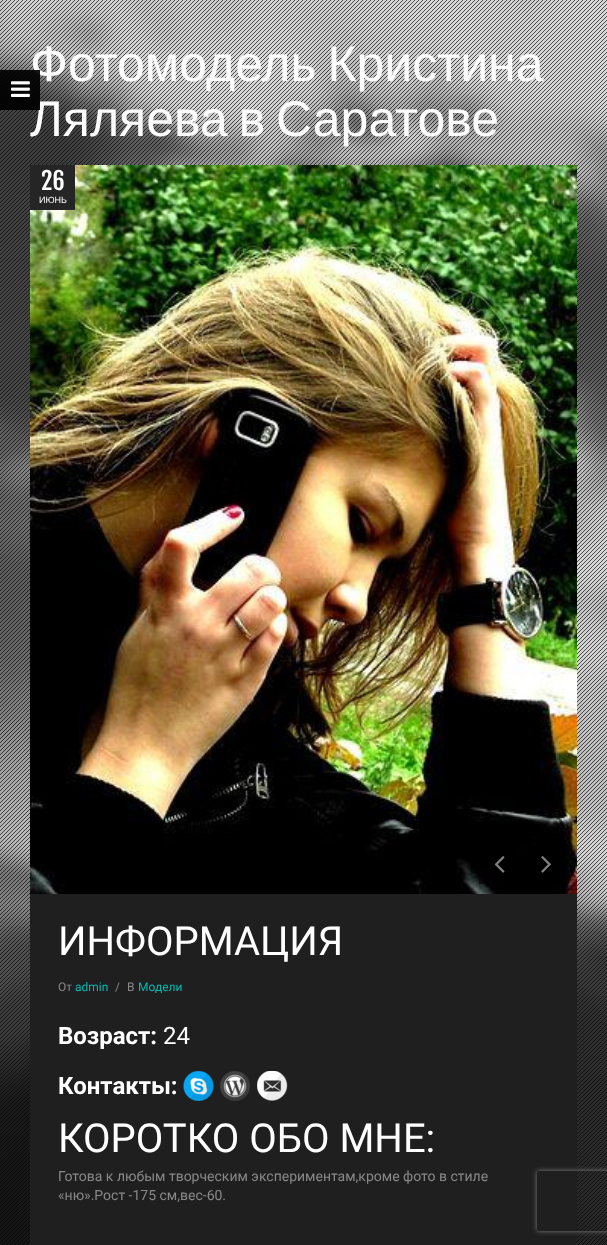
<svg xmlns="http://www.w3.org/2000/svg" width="607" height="1245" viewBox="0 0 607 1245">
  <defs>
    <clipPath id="clip1"><path d="M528 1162H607V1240H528ZM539 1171H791C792 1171 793 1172 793 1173V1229C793 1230 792 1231 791 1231H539C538 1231 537 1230 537 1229V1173C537 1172 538 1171 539 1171Z" clip-rule="evenodd"/></clipPath>
    <filter id="blur1" x="-50%" y="-200%" width="200%" height="500%"><feGaussianBlur stdDeviation="2.5"/></filter>
  </defs>
  <rect width="100%" height="100%" fill="#ffffff"/>
  <image x="0" y="0" width="607" height="1245" href="img2.png"/>
  <image x="0" y="0" width="607" height="1245" href="img3.png"/>
  <text x="30" y="81" word-spacing="-3" font-family="Liberation Sans" font-size="50" fill="#ffffff">Фотомодель Кристина</text>
  <text x="30" y="136" word-spacing="-3" font-family="Liberation Sans" font-size="50" fill="#ffffff">Ляляева в Саратове</text>
  <rect x="0" y="70" width="40" height="40" fill="#000000" fill-opacity="0.92"/>
  <image x="11" y="81" width="19" height="16" href="img1.png"/>
  <image x="30" y="165" width="547" height="729" href="img4.png"/>
  <rect x="479" y="872" width="7" height="12" fill="#000000" fill-opacity="0.5"/>
  <image x="494" y="856" width="11" height="17" href="img5.png"/>
  <rect x="564" y="843" width="3" height="41" fill="#000000" fill-opacity="0.5"/>
  <image x="541" y="856" width="10" height="17" href="img6.png"/>
  <rect x="30" y="165" width="45" height="45" fill="#252525"/>
  <text x="41" y="190" font-family="Fjalla One" font-size="24" fill="#ffffff">26</text>
  <text x="39" y="203" font-family="Liberation Sans" font-size="9" fill="#ffffff">ИЮНЬ</text>
  <rect x="30" y="894" width="547" height="351" fill="#1f1f1f"/>
  <text x="58" y="955" font-family="Roboto" font-size="40" fill="#ffffff">ИНФОРМАЦИЯ</text>
  <text x="58" y="991" font-family="Roboto" font-size="12" fill="#898989">От</text>
  <text x="75" y="991" font-family="Roboto" font-size="12" fill="#01bab0">admin</text>
  <text x="115" y="991" font-family="Roboto" font-size="12" fill="#898989">/</text>
  <text x="127" y="991" font-family="Roboto" font-size="12" fill="#898989">В</text>
  <text x="138" y="991" font-family="Roboto" font-size="12" fill="#01bab0">Модели</text>
  <text x="58" y="1044" font-family="Roboto" font-size="24" font-weight="bold" fill="#ffffff">Возраст:</text>
  <text x="163" y="1044" font-family="Roboto" font-size="24" fill="#ffffff">24</text>
  <text x="58" y="1094" font-family="Roboto" font-size="24" font-weight="bold" fill="#ffffff">Контакты:</text>
  <image x="183" y="1071" width="31" height="30" href="img7.png"/>
  <image x="220" y="1071" width="30" height="30" href="img8.png"/>
  <image x="257" y="1071" width="31" height="30" href="img9.png"/>
  <text x="58" y="1152" font-family="Roboto" font-size="40" fill="#ffffff">КОРОТКО ОБО МНЕ:</text>
  <text x="58" y="1181" font-family="Roboto" font-size="14" fill="#898989">Готова к любым творческим экспериментам,кроме фото в стиле</text>
  <text x="58" y="1200" font-family="Roboto" font-size="14" fill="#898989">«ню».Рост -175 см,вес-60.</text>
  <g clip-path="url(#clip1)">
    <rect x="537" y="1171" width="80" height="60" rx="2" fill="#808080" filter="url(#blur1)"/>
  </g>
</svg>
